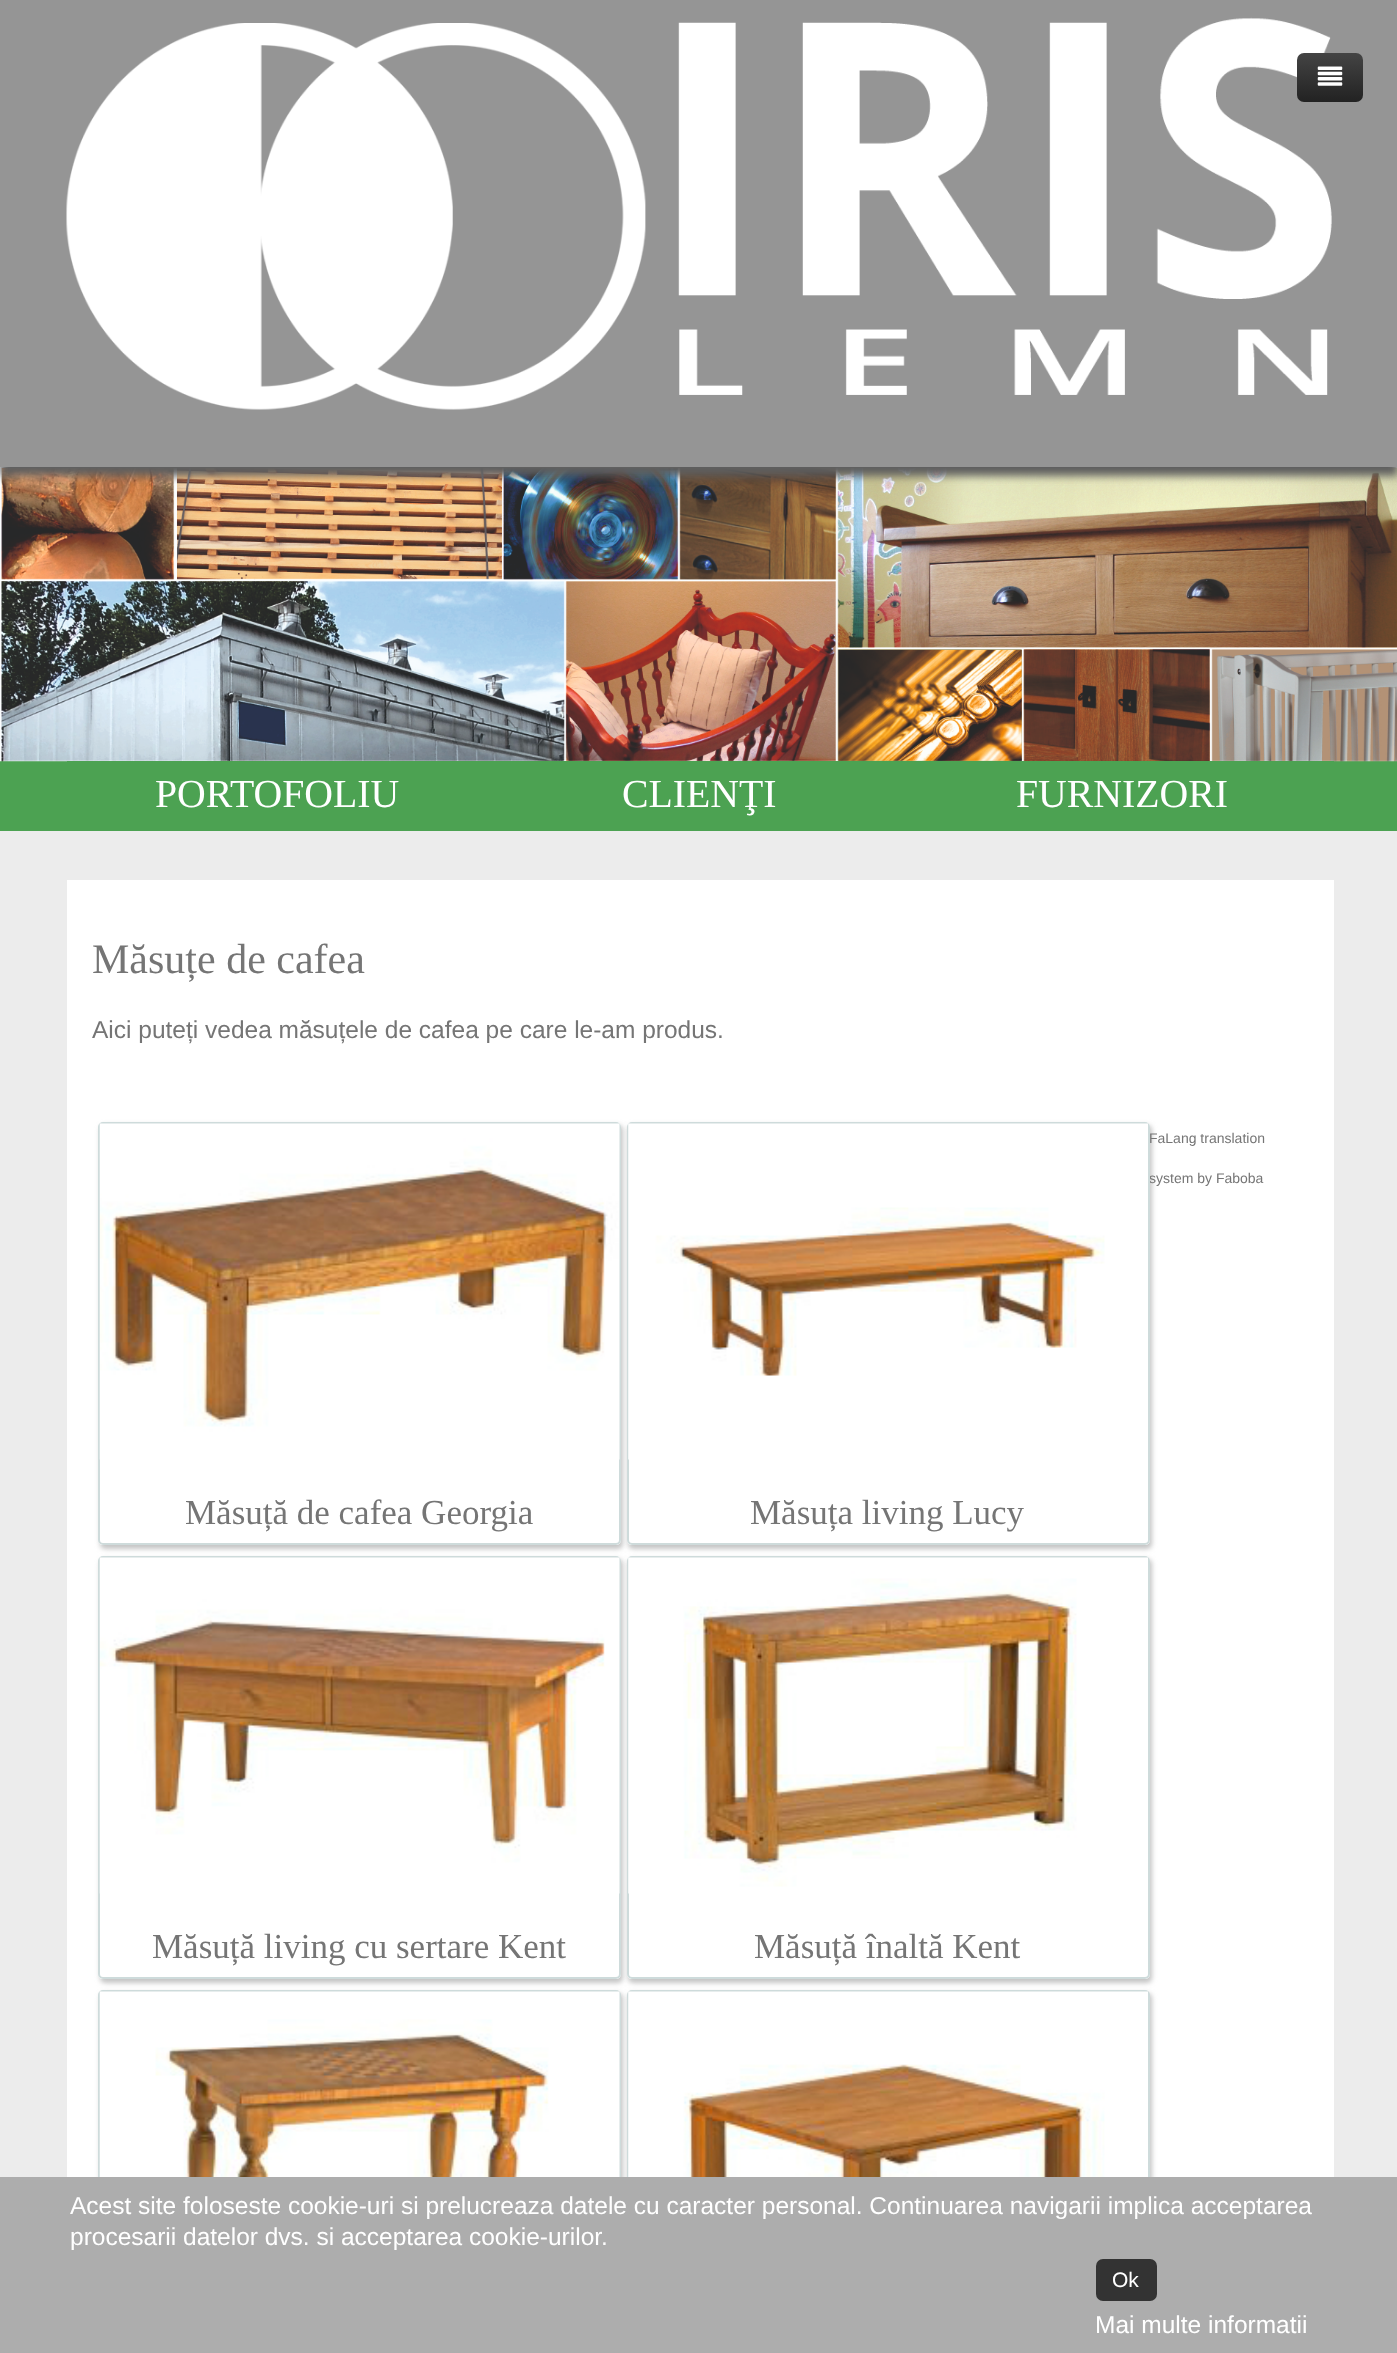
<svg xmlns="http://www.w3.org/2000/svg" width="1397" height="2353" viewBox="0 0 1397 2353">
  <defs>
    <filter id="blur1" x="-50%" y="-200%" width="200%" height="500%"><feGaussianBlur stdDeviation="4.5"/></filter>
    <linearGradient id="g1" gradientUnits="userSpaceOnUse" x1="1330" y1="53" x2="1330" y2="102"><stop offset="0" stop-color="#444444"/><stop offset="1" stop-color="#222222"/></linearGradient>
    <clipPath id="clip1"><path d="M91 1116H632V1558H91ZM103 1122H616C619 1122 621 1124 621 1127V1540C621 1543 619 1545 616 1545H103C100 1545 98 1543 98 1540V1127C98 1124 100 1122 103 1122Z" clip-rule="evenodd"/></clipPath>
    <filter id="blur2" x="-50%" y="-200%" width="200%" height="500%"><feGaussianBlur stdDeviation="2.5"/></filter>
    <clipPath id="clip2"><path d="M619 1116H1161V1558H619ZM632 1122H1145C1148 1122 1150 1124 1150 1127V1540C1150 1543 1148 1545 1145 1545H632C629 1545 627 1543 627 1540V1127C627 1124 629 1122 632 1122Z" clip-rule="evenodd"/></clipPath>
    <clipPath id="clip3"><path d="M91 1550H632V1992H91ZM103 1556H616C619 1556 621 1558 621 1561V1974C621 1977 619 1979 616 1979H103C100 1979 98 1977 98 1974V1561C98 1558 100 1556 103 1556Z" clip-rule="evenodd"/></clipPath>
    <clipPath id="clip4"><path d="M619 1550H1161V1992H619ZM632 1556H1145C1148 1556 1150 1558 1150 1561V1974C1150 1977 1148 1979 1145 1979H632C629 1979 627 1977 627 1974V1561C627 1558 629 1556 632 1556Z" clip-rule="evenodd"/></clipPath>
  </defs>
  <rect width="100%" height="100%" fill="#ececec"/>
  <rect x="0" y="761" width="1397" height="70" fill="#4ca252"/>
  <image x="0" y="467" width="1397" height="295" href="img3.png"/>
  <rect x="0" y="9" width="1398" height="467" fill="#5e5e5e" filter="url(#blur1)"/>
  <rect x="0" y="0" width="1397" height="467" fill="#959595"/>
  <image x="66" y="17" width="1266" height="393" href="img1.png"/>
  <rect x="1297" y="53" width="66" height="49" rx="7" fill="url(#g1)"/>
  <image x="1317" y="66" width="26" height="20" href="img2.png"/>
  <rect x="67" y="761" width="1267" height="1" fill="#4ca252"/>
  <text x="155" y="807" font-family="Liberation Serif" font-size="39.75" fill="#ffffff">PORTOFOLIU</text>
  <text x="622" y="807" font-family="Liberation Serif" font-size="39.75" fill="#ffffff">CLIENŢI</text>
  <text x="1016" y="807" font-family="Liberation Serif" font-size="39.75" fill="#ffffff">FURNIZORI</text>
  <rect x="67" y="880" width="1267" height="1297" fill="#ffffff"/>
  <text x="92" y="973" font-family="Liberation Serif" font-size="42" fill="#757575">Măsuțe de cafea</text>
  <text x="92" y="1038" font-family="Liberation Sans" font-size="24.5" fill="#757575">Aici puteți vedea măsuțele de cafea pe care le-am produs.</text>
  <g clip-path="url(#clip1)">
    <rect x="100" y="1125" width="523" height="424" rx="5" fill="#c4c4c4" filter="url(#blur2)"/>
  </g>
  <rect x="99" y="1123" width="521" height="421" rx="4" fill="none" stroke="#cedbdb" stroke-width="2"/>
  <image x="99" y="1123" width="521" height="337" href="img4.png"/>
  <text x="185" y="1524" font-family="Liberation Serif" font-size="35" fill="#757575">Măsuță de cafea Georgia</text>
  <g clip-path="url(#clip2)">
    <rect x="628" y="1125" width="524" height="424" rx="5" fill="#c4c4c4" filter="url(#blur2)"/>
  </g>
  <text x="1149" y="1183" font-family="Liberation Sans" font-size="14" fill="#757575">system by Faboba</text>
  <rect x="628" y="1123" width="521" height="421" rx="4" fill="none" stroke="#cedbdb" stroke-width="2"/>
  <image x="628" y="1123" width="520" height="337" href="img5.png"/>
  <text x="750" y="1524" font-family="Liberation Serif" font-size="35" fill="#757575">Măsuța living Lucy</text>
  <g clip-path="url(#clip3)">
    <rect x="100" y="1559" width="523" height="424" rx="5" fill="#c4c4c4" filter="url(#blur2)"/>
  </g>
  <rect x="99" y="1557" width="521" height="421" rx="4" fill="none" stroke="#cedbdb" stroke-width="2"/>
  <image x="99" y="1557" width="521" height="337" href="img6.png"/>
  <text x="152" y="1958" font-family="Liberation Serif" font-size="35" fill="#757575">Măsuță living cu sertare Kent</text>
  <g clip-path="url(#clip4)">
    <rect x="628" y="1559" width="524" height="424" rx="5" fill="#c4c4c4" filter="url(#blur2)"/>
  </g>
  <rect x="628" y="1557" width="521" height="421" rx="4" fill="none" stroke="#cedbdb" stroke-width="2"/>
  <image x="628" y="1557" width="520" height="337" href="img7.png"/>
  <text x="754" y="1958" font-family="Liberation Serif" font-size="35" fill="#757575">Măsuță înaltă Kent</text>
  <rect x="100" y="1993" width="523" height="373" rx="5" fill="#c4c4c4" filter="url(#blur2)"/>
  <rect x="99" y="1991" width="521" height="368" rx="4" fill="none" stroke="#cedbdb" stroke-width="2"/>
  <image x="99" y="1991" width="521" height="186" href="img8.png"/>
  <rect x="628" y="1993" width="524" height="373" rx="5" fill="#c4c4c4" filter="url(#blur2)"/>
  <rect x="628" y="1991" width="521" height="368" rx="4" fill="none" stroke="#cedbdb" stroke-width="2"/>
  <image x="628" y="1991" width="520" height="186" href="img9.png"/>
  <text x="1149" y="1143" font-family="Liberation Sans" font-size="14" fill="#757575">FaLang translation</text>
  <rect x="0" y="2177" width="1397" height="176" fill="#adadad"/>
  <text x="70" y="2214" font-family="Liberation Sans" font-size="24.5" fill="#ffffff">Acest site foloseste cookie-uri si prelucreaza datele cu caracter personal. Continuarea navigarii implica acceptarea</text>
  <text x="70" y="2245" font-family="Liberation Sans" font-size="24.5" fill="#ffffff">procesarii datelor dvs. si acceptarea cookie-urilor.</text>
  <rect x="1096" y="2259" width="61" height="42" rx="7" fill="#333333"/>
  <text x="1112" y="2287" font-family="Liberation Sans" font-size="21" fill="#ffffff">Ok</text>
  <text x="1095" y="2333" font-family="Liberation Sans" font-size="24.5" fill="#ffffff">Mai multe informatii</text>
</svg>
